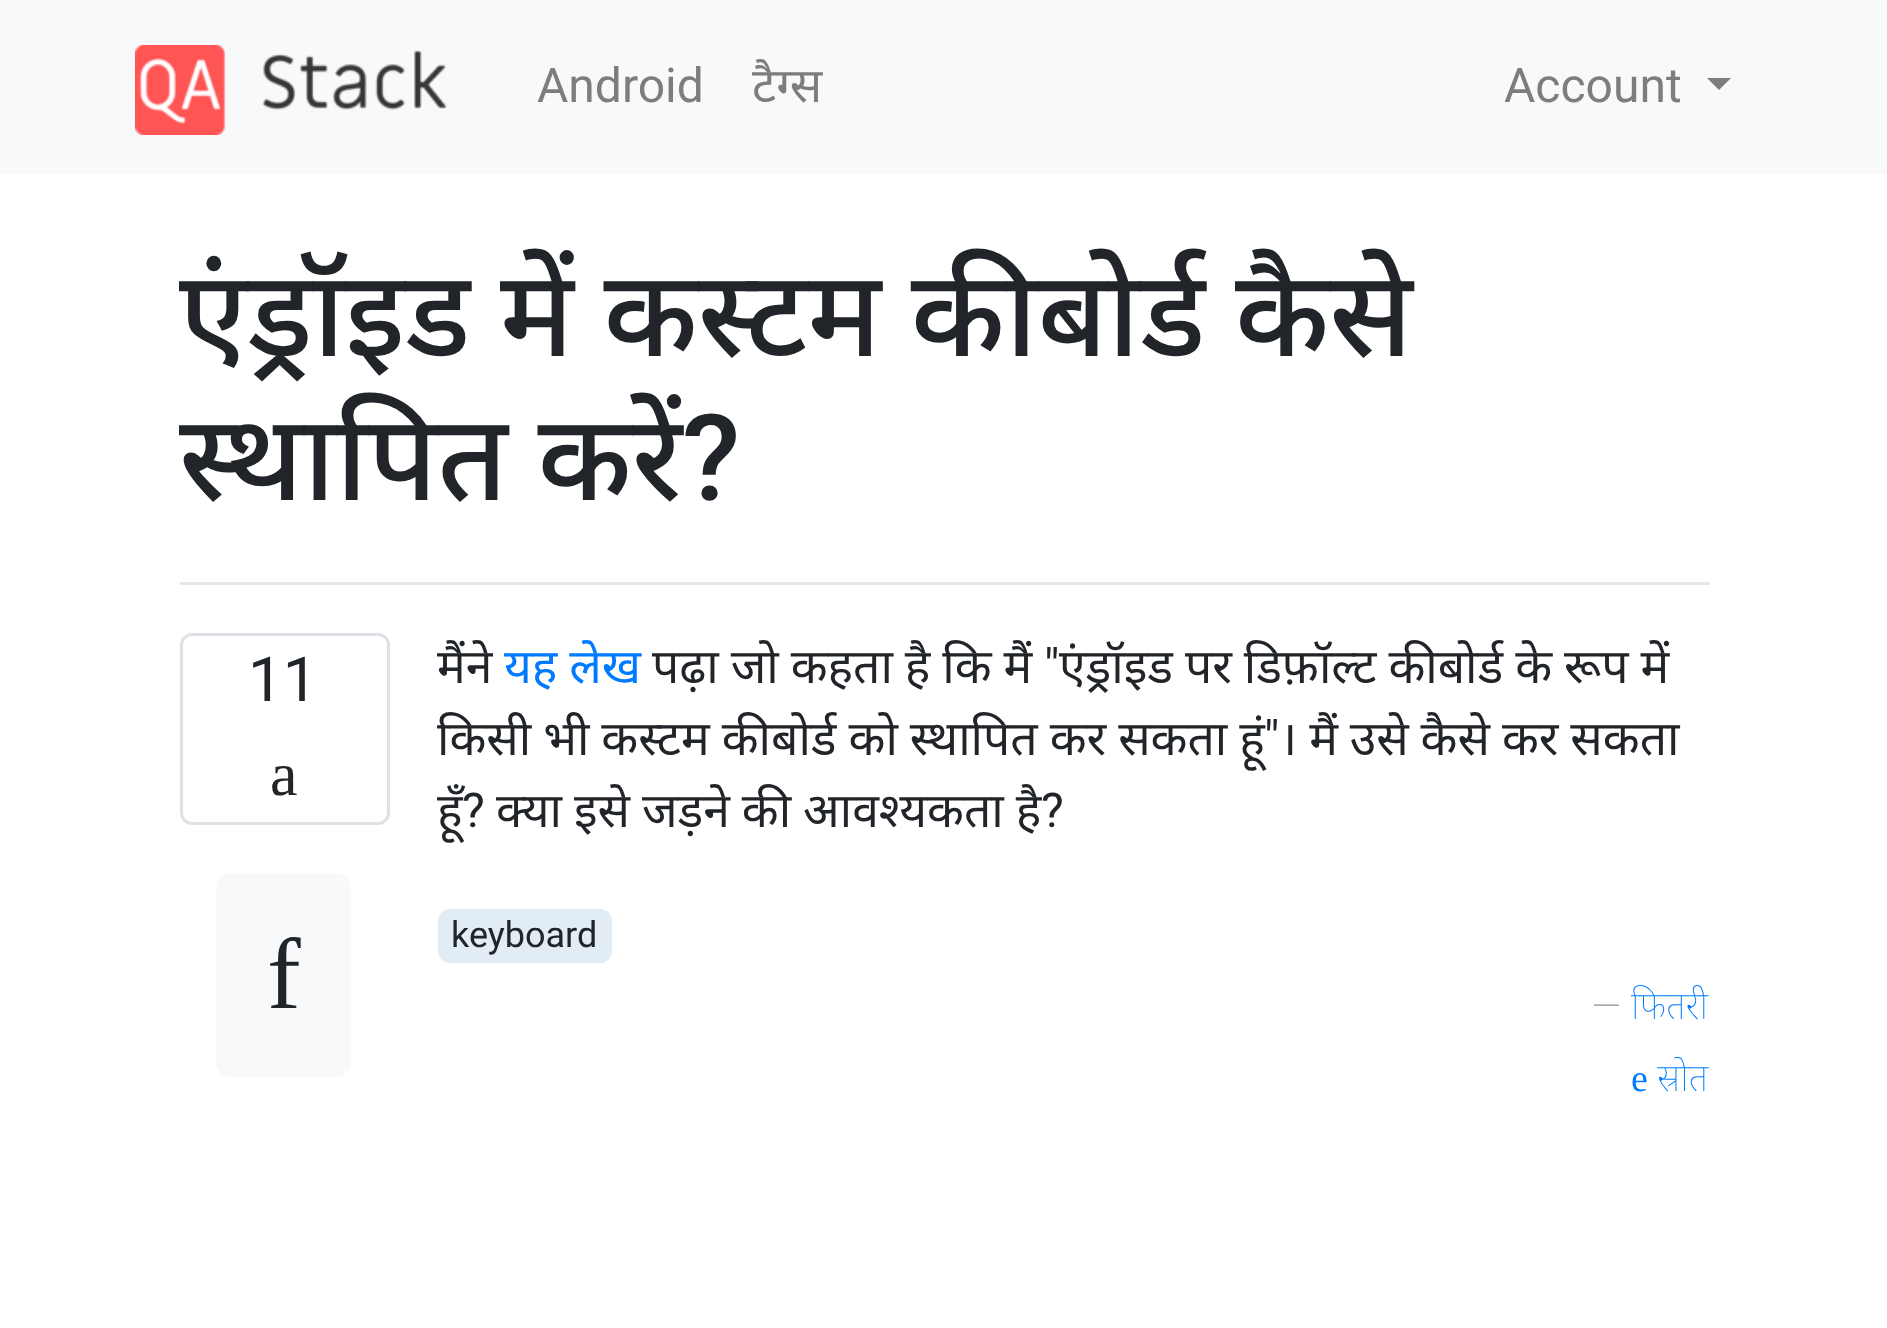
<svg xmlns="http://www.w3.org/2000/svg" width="1887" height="1328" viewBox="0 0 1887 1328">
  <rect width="100%" height="100%" fill="#ffffff"/>
  <rect x="0" y="0" width="1887" height="174" fill="#f8f9fa"/>
  <image x="135" y="45" width="312" height="90" href="img1.png"/>
  <text x="537" y="102" font-family="Roboto" font-size="48" fill="#7c7d7d">Android</text>
  <text x="752" y="102" font-family="Noto Sans" font-size="48" fill="#7c7d7d">टैग्‍स</text>
  <text x="1504" y="102" font-family="Roboto" font-size="48" fill="#7c7d7d">Account</text>
  <path d="M1707 78H1731L1719 90Z" fill="#7c7d7d"/>
  <text x="179" y="356" word-spacing="-1.5" font-family="Noto Sans" font-size="120" font-weight="500" fill="#212529">एंड्रॉइड में कस्टम कीबोर्ड कैसे</text>
  <text x="179" y="500" word-spacing="-1.5" font-family="Noto Sans" font-size="120" font-weight="500" fill="#212529">स्थापित करें</text>
  <text x="682" y="500" font-family="Roboto" font-size="120" font-weight="500" fill="#212529">?</text>
  <rect x="180" y="582" width="1530" height="3" fill="#e6e6e6"/>
  <rect x="181.5" y="634.5" width="207" height="189" rx="10.5" fill="none" stroke="#dee2e6" stroke-width="3"/>
  <text x="248" y="701" font-family="Roboto" font-size="62" fill="#212529">11</text>
  <text x="270" y="795" font-family="Liberation Serif" font-size="62" fill="#212529">a</text>
  <rect x="216" y="873" width="135" height="204" rx="15" fill="#f8f9fa"/>
  <text x="267" y="1008" font-family="Liberation Serif" font-size="101" fill="#212529">f</text>
  <text x="437" y="683" font-family="Noto Sans" font-size="48" fill="#212529">मैंने</text>
  <text x="504" y="683" word-spacing="-0.5" font-family="Noto Sans" font-size="48" fill="#007bff">यह लेख</text>
  <text x="652" y="683" word-spacing="-0.5" font-family="Noto Sans" font-size="48" fill="#212529">पढ़ा जो कहता है कि मैं</text>
  <text x="1044" y="683" font-family="Roboto" font-size="48" fill="#212529">"</text>
  <text x="1059" y="683" word-spacing="-0.5" font-family="Noto Sans" font-size="48" fill="#212529">एंड्रॉइड पर डिफ़ॉल्ट कीबोर्ड के रूप में</text>
  <text x="437" y="755" word-spacing="-0.5" font-family="Noto Sans" font-size="48" fill="#212529">किसी भी कस्टम कीबोर्ड को स्थापित कर सकता हूं</text>
  <text x="1264" y="755" font-family="Roboto" font-size="48" fill="#212529">"</text>
  <text x="1279" y="755" word-spacing="-0.5" font-family="Noto Sans" font-size="48" fill="#212529">। मैं उसे कैसे कर सकता</text>
  <text x="437" y="827" font-family="Noto Sans" font-size="48" fill="#212529">हूँ</text>
  <text x="462" y="827" font-family="Roboto" font-size="48" fill="#212529">?</text>
  <text x="496" y="827" word-spacing="-0.5" font-family="Noto Sans" font-size="48" fill="#212529">क्या इसे जड़ने की आवश्यकता है</text>
  <text x="1041" y="827" font-family="Roboto" font-size="48" fill="#212529">?</text>
  <rect x="438" y="909" width="174" height="54" rx="12" fill="#e1ecf4"/>
  <text x="451" y="947" font-family="Roboto" font-size="36" fill="#212529">keyboard</text>
  <text x="1592" y="1019" font-family="Roboto" font-size="38" font-weight="100" fill="#6c757d">—</text>
  <text x="1631" y="1019" font-family="Noto Sans" font-size="38" font-weight="100" fill="#007bff">फितरी</text>
  <text x="1631" y="1091" font-family="Liberation Serif" font-size="38" fill="#007bff">e</text>
  <text x="1657" y="1091" font-family="Noto Sans" font-size="38" font-weight="100" fill="#007bff">स्रोत</text>
</svg>
